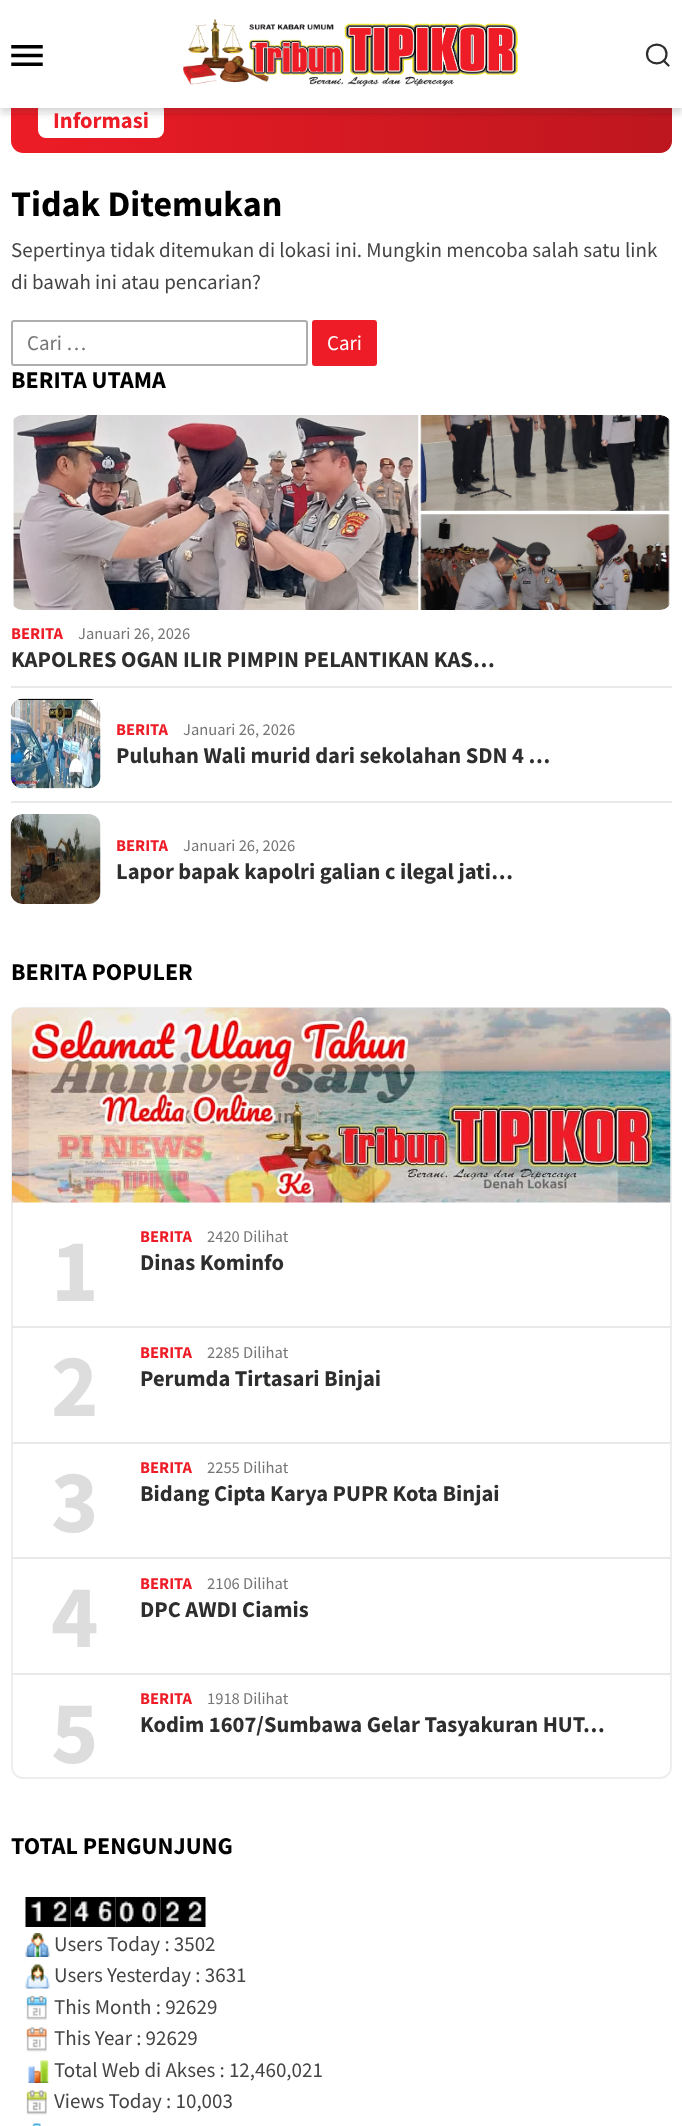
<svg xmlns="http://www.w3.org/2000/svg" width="682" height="2126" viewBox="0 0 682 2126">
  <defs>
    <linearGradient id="g1" gradientUnits="userSpaceOnUse" x1="11" y1="120" x2="672" y2="120"><stop offset="0" stop-color="#000000" stop-opacity="0"/><stop offset="1" stop-color="#000000" stop-opacity="0.2"/></linearGradient>
    <filter id="blur1" x="-50%" y="-200%" width="200%" height="500%"><feGaussianBlur stdDeviation="3"/></filter>
  </defs>
  <rect width="100%" height="100%" fill="#ffffff"/>
  <path d="M11 87H672V141C672 147.5 666.5 153 660 153H23C16.5 153 11 147.5 11 141Z" fill="#ed1c26"/>
  <path d="M11 87H672V141C672 147.5 666.5 153 660 153H23C16.5 153 11 147.5 11 141Z" fill="url(#g1)"/>
  <rect x="38" y="102" width="126" height="36" rx="8" fill="#ffffff"/>
  <rect x="0" y="3" width="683" height="110" fill="#343434" fill-opacity="0.18" filter="url(#blur1)"/>
  <rect x="0" y="0" width="682" height="108" fill="#ffffff"/>
  <image x="11" y="45" width="32" height="21" href="img1.png"/>
  <image x="183" y="19" width="335" height="68" href="img2.png"/>
  <path d="M668.5 65.5L663.5 60.5M666.5 54C666.5 66.5 647 66.5 647 54C647 41.5 666.5 41.5 666.5 54Z" fill="none" stroke="#2e2e2e" stroke-width="2.2" stroke-linecap="round"/>
  <text x="53" y="128" font-family="Source Sans Pro" font-size="22.5" font-weight="bold" fill="#ed1c26">Informasi</text>
  <text x="11" y="216" font-family="Source Sans Pro" font-size="36" font-weight="bold" fill="#000000">Tidak Ditemukan</text>
  <text x="11" y="257" font-family="Source Sans Pro" font-size="21" fill="#444444">Sepertinya tidak ditemukan di lokasi ini. Mungkin mencoba salah satu link</text>
  <text x="11" y="289" font-family="Source Sans Pro" font-size="21" fill="#444444">di bawah ini atau pencarian?</text>
  <rect x="12" y="321" width="295" height="44" rx="2" fill="none" stroke="#adadad" stroke-width="2"/>
  <text x="27" y="350" font-family="Source Sans Pro" font-size="21" fill="#757575">Cari …</text>
  <rect x="312" y="320" width="65" height="46" rx="3" fill="#ed1c26"/>
  <text x="327" y="350" font-family="Source Sans Pro" font-size="21" fill="#ffffff">Cari</text>
  <text x="11" y="388" font-family="Source Sans Pro" font-size="24" font-weight="bold" fill="#000000">BERITA UTAMA</text>
  <rect x="11" y="686" width="661" height="2" fill="#e9e9e9"/>
  <image x="13" y="415" width="657" height="195" href="img3.png"/>
  <text x="11" y="639" font-family="Source Sans Pro" font-size="16.5" font-weight="bold" fill="#ed1c26">BERITA</text>
  <text x="78" y="639" font-family="Source Sans Pro" font-size="16.5" fill="#757575">Januari 26, 2026</text>
  <text x="11" y="667" font-family="Source Sans Pro" font-size="22.5" font-weight="bold" fill="#2e2e2e">KAPOLRES OGAN ILIR PIMPIN PELANTIKAN KAS…</text>
  <rect x="11" y="801" width="661" height="2" fill="#e9e9e9"/>
  <image x="10" y="698" width="91" height="91" href="img4.png"/>
  <text x="116" y="735" font-family="Source Sans Pro" font-size="16.5" font-weight="bold" fill="#ed1c26">BERITA</text>
  <text x="183" y="735" font-family="Source Sans Pro" font-size="16.5" fill="#757575">Januari 26, 2026</text>
  <text x="116" y="763" font-family="Source Sans Pro" font-size="22.5" font-weight="bold" fill="#2e2e2e">Puluhan Wali murid dari sekolahan SDN 4 …</text>
  <image x="10" y="814" width="91" height="90" href="img5.png"/>
  <text x="116" y="851" font-family="Source Sans Pro" font-size="16.5" font-weight="bold" fill="#ed1c26">BERITA</text>
  <text x="183" y="851" font-family="Source Sans Pro" font-size="16.5" fill="#757575">Januari 26, 2026</text>
  <text x="116" y="879" font-family="Source Sans Pro" font-size="22.5" font-weight="bold" fill="#2e2e2e">Lapor bapak kapolri galian c ilegal jati…</text>
  <text x="11" y="980" font-family="Source Sans Pro" font-size="24" font-weight="bold" fill="#000000">BERITA POPULER</text>
  <rect x="12" y="1008" width="659" height="770" rx="11" fill="none" stroke="#eeeeee" stroke-width="2"/>
  <rect x="12" y="1326" width="659" height="2" fill="#e9e9e9"/>
  <image x="12" y="1007" width="659" height="196" href="img6.png"/>
  <text x="51" y="1301" font-family="Source Sans Pro" font-size="90" font-weight="bold" letter-spacing="-6" fill="#dddddd">1</text>
  <text x="140" y="1242" font-family="Source Sans Pro" font-size="16.5" font-weight="bold" fill="#ed1c26">BERITA</text>
  <text x="207" y="1242" font-family="Source Sans Pro" font-size="16.5" fill="#757575">2420 Dilihat</text>
  <text x="140" y="1270" font-family="Source Sans Pro" font-size="22.5" font-weight="bold" fill="#2e2e2e">Dinas Kominfo</text>
  <rect x="12" y="1442" width="659" height="2" fill="#e9e9e9"/>
  <text x="51" y="1416" font-family="Source Sans Pro" font-size="90" font-weight="bold" letter-spacing="-6" fill="#dddddd">2</text>
  <text x="140" y="1358" font-family="Source Sans Pro" font-size="16.5" font-weight="bold" fill="#ed1c26">BERITA</text>
  <text x="207" y="1358" font-family="Source Sans Pro" font-size="16.5" fill="#757575">2285 Dilihat</text>
  <text x="140" y="1386" font-family="Source Sans Pro" font-size="22.5" font-weight="bold" fill="#2e2e2e">Perumda Tirtasari Binjai</text>
  <rect x="12" y="1557" width="659" height="2" fill="#e9e9e9"/>
  <text x="51" y="1532" font-family="Source Sans Pro" font-size="90" font-weight="bold" letter-spacing="-6" fill="#dddddd">3</text>
  <text x="140" y="1473" font-family="Source Sans Pro" font-size="16.5" font-weight="bold" fill="#ed1c26">BERITA</text>
  <text x="207" y="1473" font-family="Source Sans Pro" font-size="16.5" fill="#757575">2255 Dilihat</text>
  <text x="140" y="1501" font-family="Source Sans Pro" font-size="22.5" font-weight="bold" fill="#2e2e2e">Bidang Cipta Karya PUPR Kota Binjai</text>
  <rect x="12" y="1673" width="659" height="2" fill="#e9e9e9"/>
  <text x="51" y="1647" font-family="Source Sans Pro" font-size="90" font-weight="bold" letter-spacing="-6" fill="#dddddd">4</text>
  <text x="140" y="1589" font-family="Source Sans Pro" font-size="16.5" font-weight="bold" fill="#ed1c26">BERITA</text>
  <text x="207" y="1589" font-family="Source Sans Pro" font-size="16.5" fill="#757575">2106 Dilihat</text>
  <text x="140" y="1617" font-family="Source Sans Pro" font-size="22.5" font-weight="bold" fill="#2e2e2e">DPC AWDI Ciamis</text>
  <text x="51" y="1763" font-family="Source Sans Pro" font-size="90" font-weight="bold" letter-spacing="-6" fill="#dddddd">5</text>
  <text x="140" y="1704" font-family="Source Sans Pro" font-size="16.5" font-weight="bold" fill="#ed1c26">BERITA</text>
  <text x="207" y="1704" font-family="Source Sans Pro" font-size="16.5" fill="#757575">1918 Dilihat</text>
  <text x="140" y="1732" font-family="Source Sans Pro" font-size="22.5" font-weight="bold" fill="#2e2e2e">Kodim 1607/Sumbawa Gelar Tasyakuran HUT…</text>
  <text x="11" y="1854" font-family="Source Sans Pro" font-size="24" font-weight="bold" fill="#000000">TOTAL PENGUNJUNG</text>
  <image x="25" y="1897" width="23" height="30" href="img7.png"/>
  <image x="48" y="1897" width="23" height="30" href="img8.png"/>
  <image x="70" y="1897" width="23" height="30" href="img9.png"/>
  <image x="93" y="1897" width="23" height="30" href="img10.png"/>
  <image x="115" y="1897" width="23" height="30" href="img11.png"/>
  <image x="138" y="1897" width="23" height="30" href="img12.png"/>
  <image x="160" y="1897" width="23" height="30" href="img13.png"/>
  <image x="183" y="1897" width="23" height="30" href="img8.png"/>
  <image x="25" y="1933" width="25" height="24" href="img14.png"/>
  <text x="54" y="1951" font-family="Source Sans Pro" font-size="21" fill="#444444">Users Today : 3502</text>
  <image x="25" y="1964" width="25" height="25" href="img15.png"/>
  <text x="54" y="1982" font-family="Source Sans Pro" font-size="21" fill="#444444">Users Yesterday : 3631</text>
  <image x="26" y="1996" width="21" height="24" href="img16.png"/>
  <text x="54" y="2014" font-family="Source Sans Pro" font-size="21" fill="#444444">This Month : 92629</text>
  <image x="26" y="2027" width="21" height="25" href="img17.png"/>
  <text x="54" y="2045" font-family="Source Sans Pro" font-size="21" fill="#444444">This Year : 92629</text>
  <image x="28" y="2060" width="21" height="23" href="img18.png"/>
  <text x="54" y="2077" font-family="Source Sans Pro" font-size="21" fill="#444444">Total Web di Akses : 12,460,021</text>
  <image x="26" y="2090" width="21" height="25" href="img19.png"/>
  <text x="54" y="2108" font-family="Source Sans Pro" font-size="21" fill="#444444">Views Today : 10,003</text>
  <image x="32" y="2123" width="9" height="3" href="img20.png"/>
</svg>
